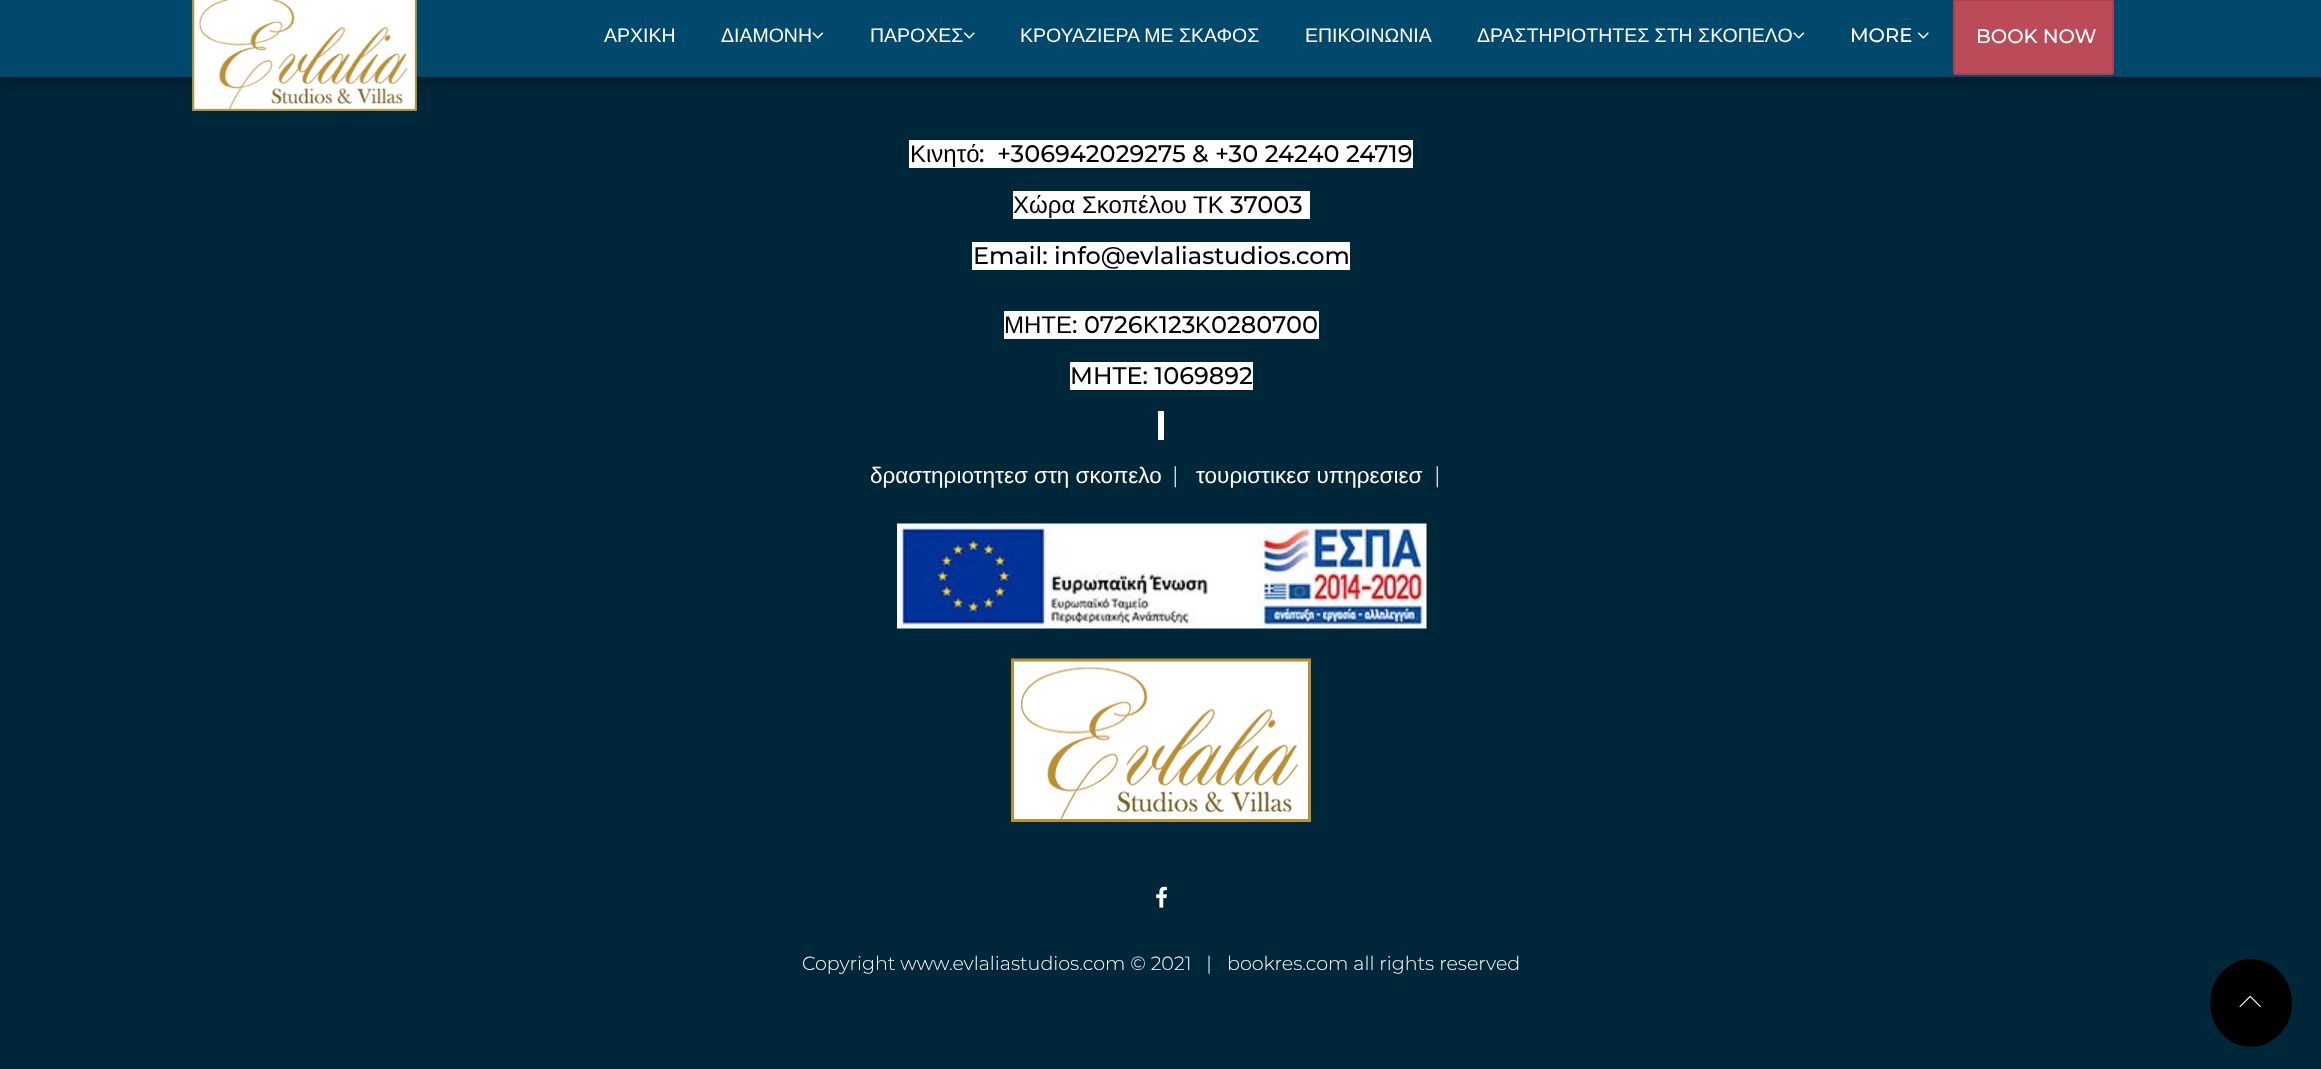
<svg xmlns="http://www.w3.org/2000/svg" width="2321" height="1069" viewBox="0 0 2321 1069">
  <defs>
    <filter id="blur1" x="-50%" y="-200%" width="200%" height="500%"><feGaussianBlur stdDeviation="7.5"/></filter>
  </defs>
  <rect width="100%" height="100%" fill="#002639"/>
  <rect x="0" y="0" width="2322" height="77" fill="#000000" fill-opacity="0.5" filter="url(#blur1)"/>
  <rect x="0" y="0" width="2321" height="77" fill="#00486c"/>
  <image x="192" y="0" width="225" height="111" href="img1.png"/>
  <text x="604" y="42" font-family="Liberation Sans" font-size="19.5" fill="#ffffff">ΑΡΧΙΚΗ</text>
  <text x="721" y="42" font-family="Liberation Sans" font-size="19.5" fill="#ffffff">ΔΙΑΜΟΝΗ</text>
  <image x="812" y="32" width="12" height="7" href="img2.png"/>
  <text x="870" y="42" font-family="Liberation Sans" font-size="19.5" fill="#ffffff">ΠΑΡΟΧΕΣ</text>
  <image x="963" y="32" width="12" height="7" href="img3.png"/>
  <text x="1020" y="42" font-family="Liberation Sans" font-size="19.5" fill="#ffffff">ΚΡΟΥΑΖΙΕΡΑ ΜΕ ΣΚΑΦΟΣ</text>
  <text x="1305" y="42" font-family="Liberation Sans" font-size="19.5" fill="#ffffff">ΕΠΙΚΟΙΝΩΝΙΑ</text>
  <text x="1477" y="42" font-family="Liberation Sans" font-size="19.5" fill="#ffffff">ΔΡΑΣΤΗΡΙΟΤΗΤΕΣ ΣΤΗ ΣΚΟΠΕΛΟ</text>
  <image x="1793" y="32" width="12" height="7" href="img2.png"/>
  <text x="1850" y="42" font-family="Montserrat" font-size="19.5" font-weight="500" fill="#ffffff">MORE</text>
  <image x="1917" y="32" width="12" height="7" href="img3.png"/>
  <rect x="1954" y="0" width="159" height="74" rx="2" fill="#bb4b59" stroke="#ac414e" stroke-width="2"/>
  <text x="1976" y="43" font-family="Montserrat" font-size="19.5" font-weight="500" fill="#ffffff">BOOK NOW</text>
  <rect x="909" y="140" width="504" height="28" fill="#ffffff"/>
  <text x="910" y="162" font-family="Liberation Sans" font-size="24" fill="#000000">Κινητό</text>
  <text x="979" y="162" font-family="Montserrat" font-size="24" font-weight="500" fill="#000000">:</text>
  <text x="997" y="162" font-family="Montserrat" font-size="24" font-weight="500" fill="#000000">+306942029275 &amp; +30 24240 24719</text>
  <rect x="1013" y="191" width="297" height="28" fill="#ffffff"/>
  <text x="1013" y="213" font-family="Liberation Sans" font-size="24" fill="#000000">Χώρα Σκοπέλου ΤΚ</text>
  <text x="1230" y="213" font-family="Montserrat" font-size="24" font-weight="500" fill="#000000">37003</text>
  <rect x="972" y="242" width="378" height="28" fill="#ffffff"/>
  <text x="973" y="264" font-family="Montserrat" font-size="24" font-weight="500" fill="#000000">Email: info@evlaliastudios.com</text>
  <rect x="1004" y="311" width="315" height="28" fill="#ffffff"/>
  <text x="1004" y="333" font-family="Liberation Sans" font-size="24" fill="#000000">ΜΗΤΕ</text>
  <text x="1072" y="333" font-family="Montserrat" font-size="24" font-weight="500" fill="#000000">: 0726</text>
  <text x="1143" y="333" font-family="Liberation Sans" font-size="24" fill="#000000">Κ</text>
  <text x="1159" y="333" font-family="Montserrat" font-size="24" font-weight="500" fill="#000000">123</text>
  <text x="1195" y="333" font-family="Liberation Sans" font-size="24" fill="#000000">Κ</text>
  <text x="1211" y="333" font-family="Montserrat" font-size="24" font-weight="500" fill="#000000">0280700</text>
  <rect x="1070" y="362" width="183" height="28" fill="#ffffff"/>
  <text x="1070" y="384" font-family="Montserrat" font-size="24" font-weight="500" fill="#000000">MHTE: 1069892</text>
  <rect x="1158" y="411" width="6" height="29" fill="#ffffff"/>
  <text x="870" y="483" font-family="Liberation Sans" font-size="22.5" fill="#ffffff">δραστηριοτητεσ στη σκοπελο</text>
  <text x="1172" y="483" font-family="Montserrat" font-size="22.5" font-weight="300" fill="#ffffff">|</text>
  <text x="1196" y="483" font-family="Liberation Sans" font-size="22.5" fill="#ffffff">τουριστικεσ υπηρεσιεσ</text>
  <text x="1434" y="483" font-family="Montserrat" font-size="22.5" font-weight="300" fill="#ffffff">|</text>
  <image x="897" y="523" width="530" height="106" href="img4.png"/>
  <image x="1011" y="658" width="300" height="164" href="img5.png"/>
  <image x="1156" y="886" width="12" height="22" href="img6.png"/>
  <text x="802" y="970" font-family="Montserrat" font-size="19.1" font-weight="300" fill="#ffffff" xml:space="preserve">Copyright www.evlaliastudios.com © 2021   |</text>
  <text x="1227" y="970" font-family="Montserrat" font-size="19.1" font-weight="300" fill="#ffffff">bookres.com all rights reserved</text>
  <ellipse cx="2251" cy="1003" rx="41" ry="44" fill="#000000"/>
  <image x="2239" y="995" width="22" height="12" href="img7.png"/>
</svg>
